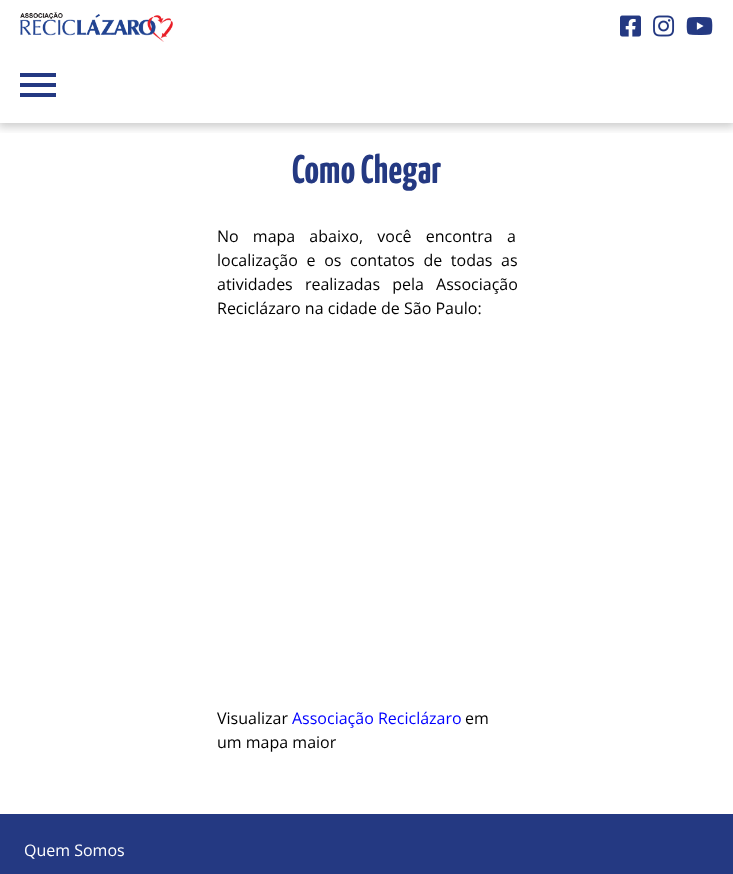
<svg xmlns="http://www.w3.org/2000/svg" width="733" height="874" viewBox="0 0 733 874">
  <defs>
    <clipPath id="clip1"><rect x="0" y="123" width="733" height="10"/></clipPath>
    <filter id="blur1" x="-50%" y="-200%" width="200%" height="500%"><feGaussianBlur stdDeviation="5"/></filter>
  </defs>
  <rect width="100%" height="100%" fill="#ffffff"/>
  <g clip-path="url(#clip1)">
    <rect x="-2" y="0" width="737" height="127" fill="#000000" fill-opacity="0.2" filter="url(#blur1)"/>
  </g>
  <image x="20" y="12" width="153" height="30" href="img1.png"/>
  <image x="620" y="15" width="21" height="22" href="img2.png"/>
  <image x="653" y="15" width="22" height="22" href="img3.png"/>
  <image x="686" y="17" width="27" height="18" href="img4.png"/>
  <rect x="20" y="73" width="36" height="4" fill="#243982"/>
  <rect x="20" y="83" width="36" height="4" fill="#243982"/>
  <rect x="20" y="93" width="36" height="4" fill="#243982"/>
  <text x="292" y="183" font-family="Yanone Kaffeesatz" font-size="40" font-weight="bold" fill="#243982">Como Chegar</text>
  <text x="217" y="242" word-spacing="10" font-family="Open Sans" font-size="16" fill="#000000">No mapa abaixo, você encontra a</text>
  <text x="217" y="266" word-spacing="4.5" font-family="Open Sans" font-size="16" fill="#000000">localização e os contatos de todas as</text>
  <text x="217" y="290" word-spacing="8" font-family="Open Sans" font-size="16" fill="#000000">atividades realizadas pela Associação</text>
  <text x="217" y="314" font-family="Open Sans" font-size="16" fill="#000000">Reciclázaro na cidade de São Paulo:</text>
  <text x="217" y="724" font-family="Open Sans" font-size="16" fill="#000000">Visualizar</text>
  <text x="292" y="724" font-family="Open Sans" font-size="16" fill="#0000ff">Associação Reciclázaro</text>
  <text x="465" y="724" font-family="Open Sans" font-size="16" fill="#000000">em</text>
  <text x="217" y="748" font-family="Open Sans" font-size="16" fill="#000000">um mapa maior</text>
  <rect x="0" y="814" width="733" height="60" fill="#243982"/>
  <text x="24" y="856" font-family="Open Sans" font-size="16" fill="#ffffff">Quem Somos</text>
</svg>
